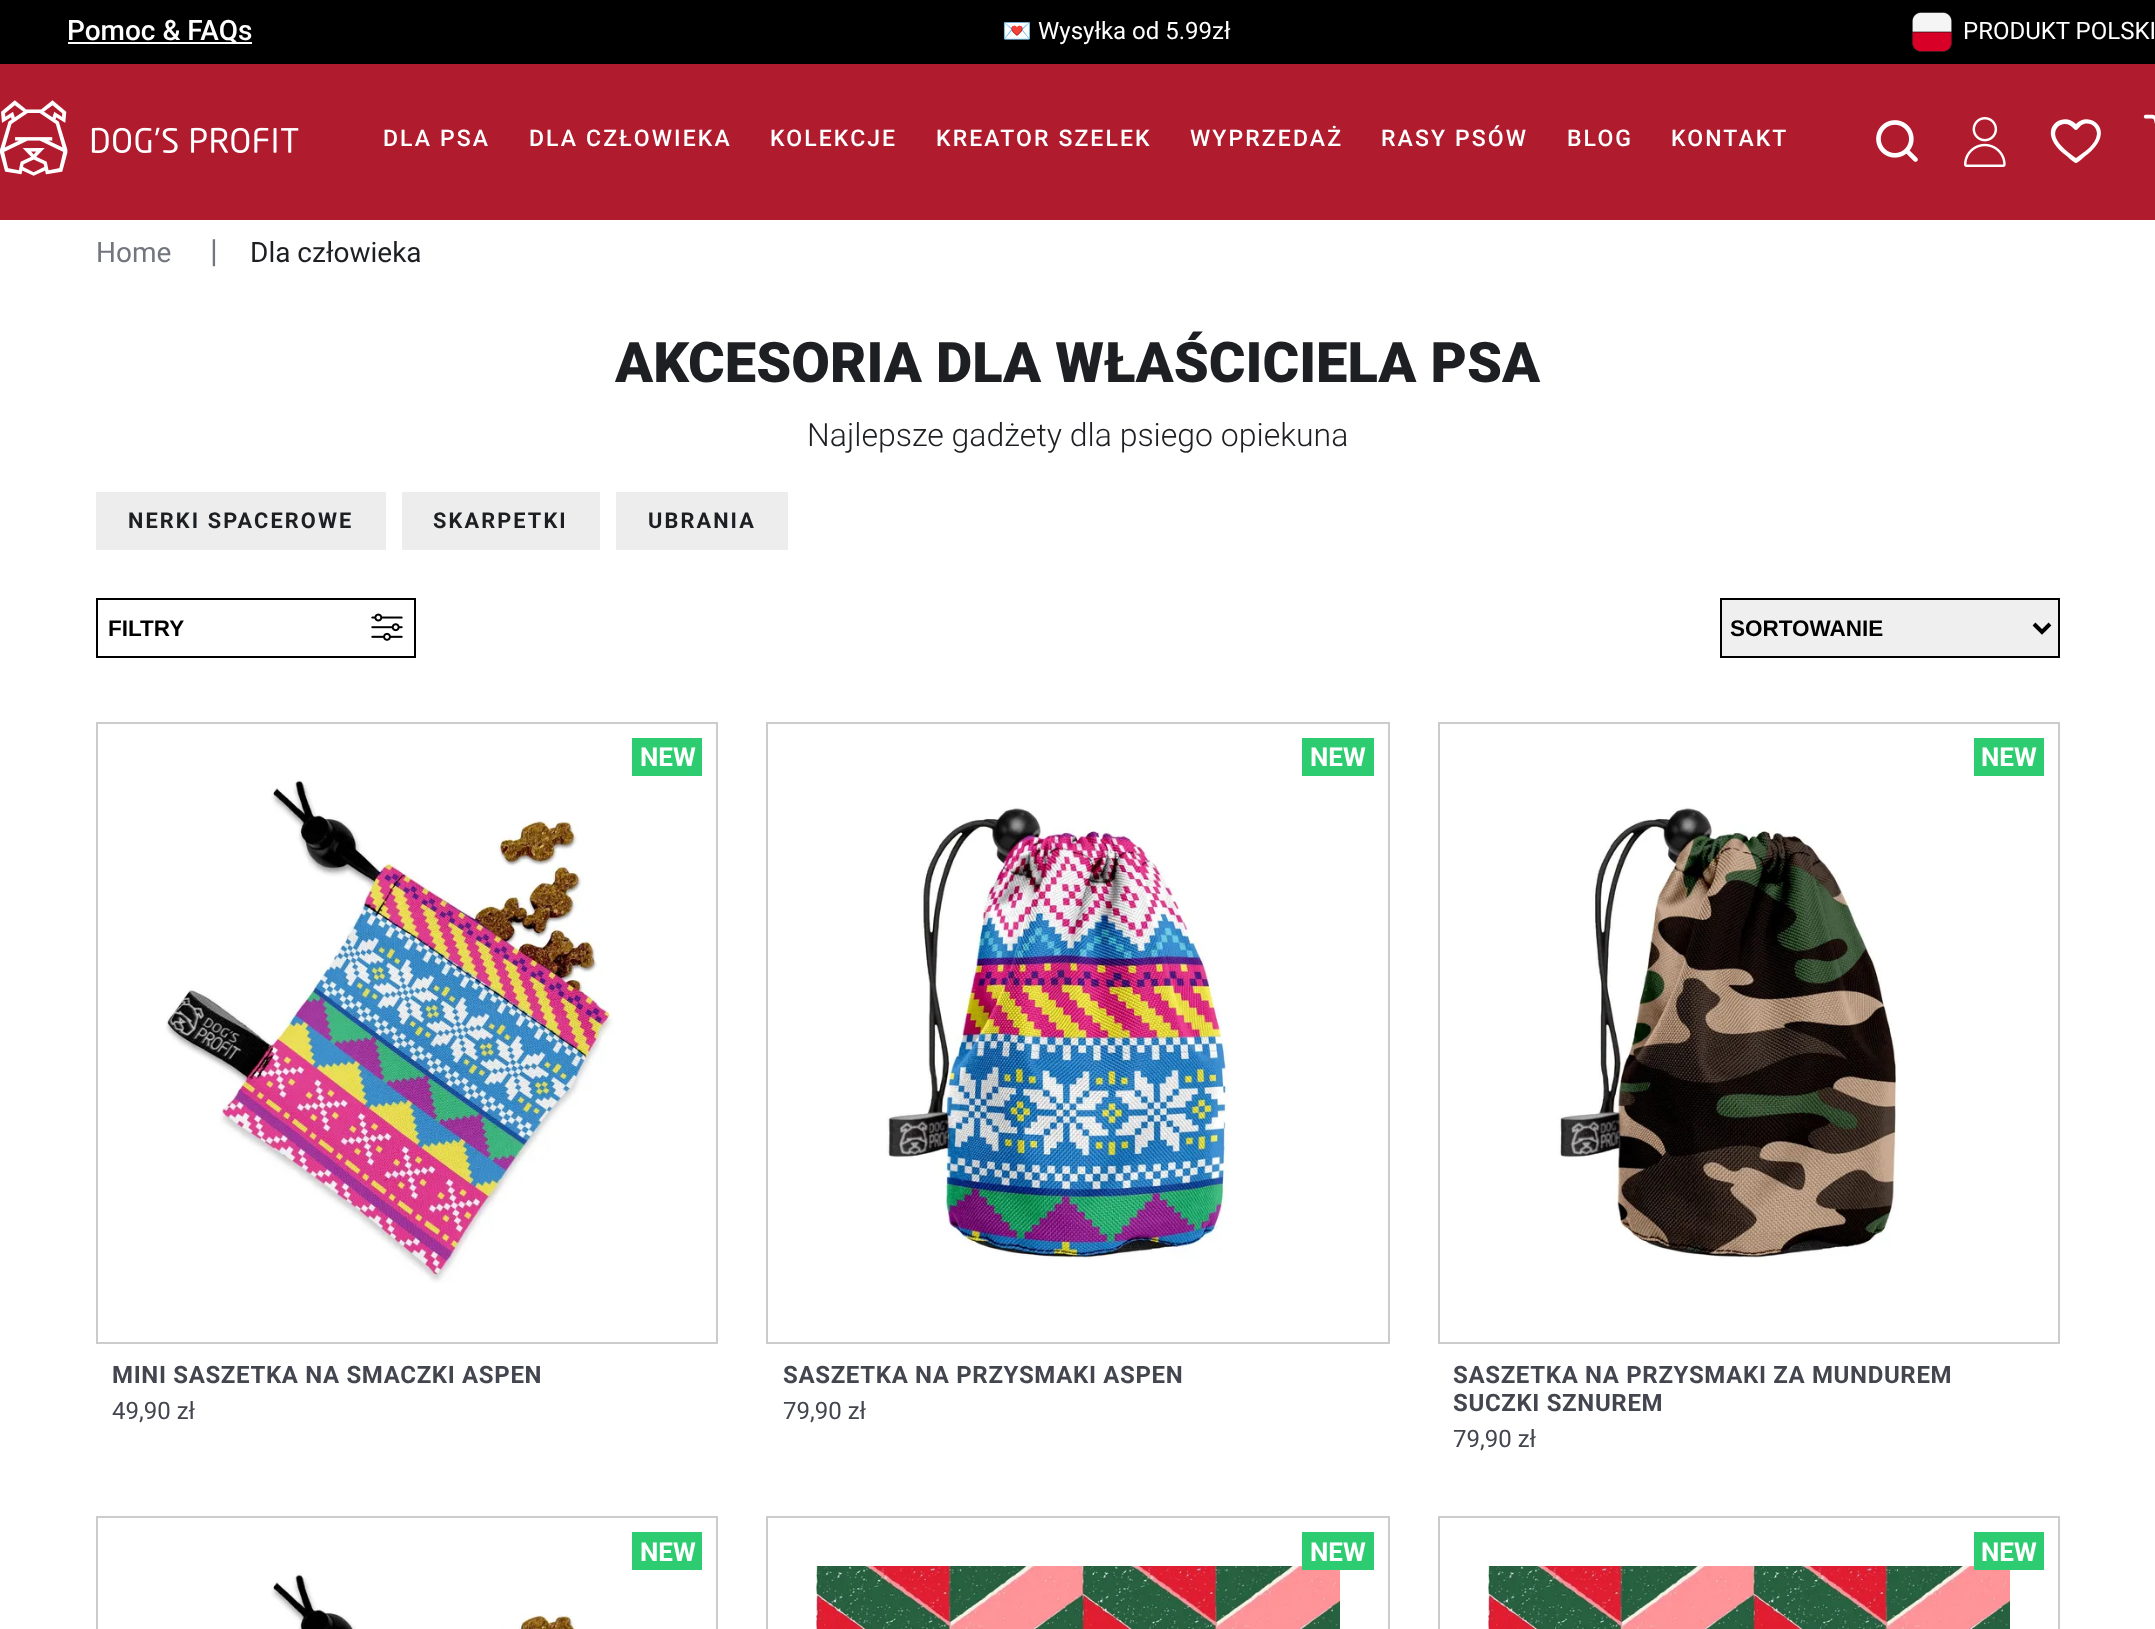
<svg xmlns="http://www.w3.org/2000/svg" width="2155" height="1629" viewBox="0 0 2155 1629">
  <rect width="100%" height="100%" fill="#ffffff"/>
  <rect x="0" y="0" width="2155" height="64" fill="#000000"/>
  <rect x="68" y="42" width="184" height="2" fill="#ffffff"/>
  <text x="67" y="40" font-family="Roboto" font-size="28" font-weight="500" fill="#ffffff">Pomoc &amp; FAQs</text>
  <text x="1002" y="39" font-family="Noto Color Emoji" font-size="24" fill="#ffffff">💌</text>
  <text x="1038" y="39" font-family="Roboto" font-size="24" fill="#ffffff">Wysyłka od 5.99zł</text>
  <image x="1912" y="12" width="40" height="40" href="img1.png"/>
  <text x="1963" y="39" font-family="Roboto" font-size="24" fill="#ffffff">PRODUKT POLSKI</text>
  <rect x="0" y="64" width="2155" height="156" fill="#b01b2e"/>
  <image x="0" y="100" width="299" height="76" href="img2.png"/>
  <text x="383" y="146" font-family="Roboto" font-size="23" font-weight="500" letter-spacing="2.1" fill="#ffffff">DLA PSA</text>
  <text x="529" y="146" font-family="Roboto" font-size="23" font-weight="500" letter-spacing="2.1" fill="#ffffff">DLA CZŁOWIEKA</text>
  <text x="770" y="146" font-family="Roboto" font-size="23" font-weight="500" letter-spacing="2.1" fill="#ffffff">KOLEKCJE</text>
  <text x="936" y="146" font-family="Roboto" font-size="23" font-weight="500" letter-spacing="2.1" fill="#ffffff">KREATOR SZELEK</text>
  <text x="1190" y="146" font-family="Roboto" font-size="23" font-weight="500" letter-spacing="2.1" fill="#ffffff">WYPRZEDAŻ</text>
  <text x="1381" y="146" font-family="Roboto" font-size="23" font-weight="500" letter-spacing="2.1" fill="#ffffff">RASY PSÓW</text>
  <text x="1567" y="146" font-family="Roboto" font-size="23" font-weight="500" letter-spacing="2.1" fill="#ffffff">BLOG</text>
  <text x="1671" y="146" font-family="Roboto" font-size="23" font-weight="500" letter-spacing="2.1" fill="#ffffff">KONTAKT</text>
  <image x="1876" y="120" width="42" height="42" href="img3.png"/>
  <image x="1964" y="117" width="42" height="50" href="img4.png"/>
  <path d="M2076 163C2074 163 2066 155 2064 154C2034 129 2063 110 2076 124C2088 110 2118 129 2088 154C2086 155 2078 163 2076 163ZM2065 124C2062 124 2059 125 2057 128C2049 139 2069 153 2076 158C2084 152 2096 145 2097 134C2097 127 2091 122 2084 124C2080 125 2078 130 2076 130C2073 130 2072 124 2065 124Z" fill="#ffffff"/>
  <image x="2143" y="114" width="12" height="10" href="img5.png"/>
  <text x="96" y="262" font-family="Roboto" font-size="28" fill="#72757e">Home</text>
  <text x="210" y="262" font-family="Roboto" font-size="32" fill="#72757e">|</text>
  <text x="250" y="262" font-family="Roboto" font-size="28" fill="#1d1f22">Dla człowieka</text>
  <text x="615" y="382" font-family="Roboto" font-size="56" font-weight="900" fill="#1d1f22">AKCESORIA DLA WŁAŚCICIELA PSA</text>
  <text x="807" y="446" font-family="Roboto" font-size="32" font-weight="300" fill="#1d1f22">Najlepsze gadżety dla psiego opiekuna</text>
  <rect x="96" y="492" width="290" height="58" fill="#ededee"/>
  <text x="128" y="528" font-family="Roboto" font-size="21.75" font-weight="bold" letter-spacing="2.1" fill="#1d1f22">NERKI SPACEROWE</text>
  <rect x="402" y="492" width="198" height="58" fill="#ededee"/>
  <text x="433" y="528" font-family="Roboto" font-size="21.75" font-weight="bold" letter-spacing="2.1" fill="#1d1f22">SKARPETKI</text>
  <rect x="616" y="492" width="172" height="58" fill="#ededee"/>
  <text x="648" y="528" font-family="Roboto" font-size="21.75" font-weight="bold" letter-spacing="2.1" fill="#1d1f22">UBRANIA</text>
  <rect x="97" y="599" width="318" height="58" fill="none" stroke="#000000" stroke-width="2"/>
  <text x="108" y="636" font-family="Liberation Sans" font-size="22.5" font-weight="bold" fill="#000000">FILTRY</text>
  <image x="371" y="613" width="32" height="28" href="img6.png"/>
  <rect x="1721" y="599" width="338" height="58" fill="#efefef" stroke="#000000" stroke-width="2"/>
  <path d="M2034 624L2042 632L2050 624" fill="none" stroke="#000000" stroke-width="4"/>
  <text x="1730" y="636" font-family="Liberation Sans" font-size="22.5" font-weight="bold" fill="#000000">SORTOWANIE</text>
  <rect x="97" y="723" width="620" height="620" fill="none" stroke="#cccccc" stroke-width="2"/>
  <image x="165" y="779" width="449" height="504" href="img7.png"/>
  <rect x="632" y="738" width="70" height="38" fill="#2ecc71"/>
  <text x="640" y="766" font-family="Roboto" font-size="26" font-weight="bold" fill="#ffffff">NEW</text>
  <text x="112" y="1383" font-family="Roboto" font-size="24" font-weight="bold" letter-spacing="0.65" fill="#43464e">MINI SASZETKA NA SMACZKI ASPEN</text>
  <text x="112" y="1419" font-family="Roboto" font-size="24" fill="#43464e">49,90 zł</text>
  <rect x="767" y="723" width="622" height="620" fill="none" stroke="#cccccc" stroke-width="2"/>
  <image x="886" y="807" width="343" height="453" href="img8.png"/>
  <rect x="1302" y="738" width="72" height="38" fill="#2ecc71"/>
  <text x="1310" y="766" font-family="Roboto" font-size="26" font-weight="bold" fill="#ffffff">NEW</text>
  <text x="783" y="1383" font-family="Roboto" font-size="24" font-weight="bold" letter-spacing="0.65" fill="#43464e">SASZETKA NA PRZYSMAKI ASPEN</text>
  <text x="783" y="1419" font-family="Roboto" font-size="24" fill="#43464e">79,90 zł</text>
  <rect x="1439" y="723" width="620" height="620" fill="none" stroke="#cccccc" stroke-width="2"/>
  <image x="1558" y="807" width="341" height="452" href="img9.png"/>
  <rect x="1974" y="738" width="70" height="38" fill="#2ecc71"/>
  <text x="1981" y="766" font-family="Roboto" font-size="26" font-weight="bold" fill="#ffffff">NEW</text>
  <text x="1453" y="1383" font-family="Roboto" font-size="24" font-weight="bold" letter-spacing="0.65" fill="#43464e">SASZETKA NA PRZYSMAKI ZA MUNDUREM</text>
  <text x="1453" y="1411" font-family="Roboto" font-size="24" font-weight="bold" letter-spacing="0.65" fill="#43464e">SUCZKI SZNUREM</text>
  <text x="1453" y="1447" font-family="Roboto" font-size="24" fill="#43464e">79,90 zł</text>
  <rect x="97" y="1517" width="620" height="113" fill="none" stroke="#cccccc" stroke-width="2"/>
  <image x="271" y="1573" width="305" height="56" href="img10.png"/>
  <rect x="632" y="1532" width="70" height="38" fill="#2ecc71"/>
  <text x="640" y="1561" font-family="Roboto" font-size="26" font-weight="bold" fill="#ffffff">NEW</text>
  <rect x="767" y="1517" width="622" height="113" fill="none" stroke="#cccccc" stroke-width="2"/>
  <image x="816" y="1566" width="524" height="63" href="img11.png"/>
  <rect x="1302" y="1532" width="72" height="38" fill="#2ecc71"/>
  <text x="1310" y="1561" font-family="Roboto" font-size="26" font-weight="bold" fill="#ffffff">NEW</text>
  <rect x="1439" y="1517" width="620" height="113" fill="none" stroke="#cccccc" stroke-width="2"/>
  <image x="1488" y="1566" width="522" height="63" href="img12.png"/>
  <rect x="1974" y="1532" width="70" height="38" fill="#2ecc71"/>
  <text x="1981" y="1561" font-family="Roboto" font-size="26" font-weight="bold" fill="#ffffff">NEW</text>
</svg>
